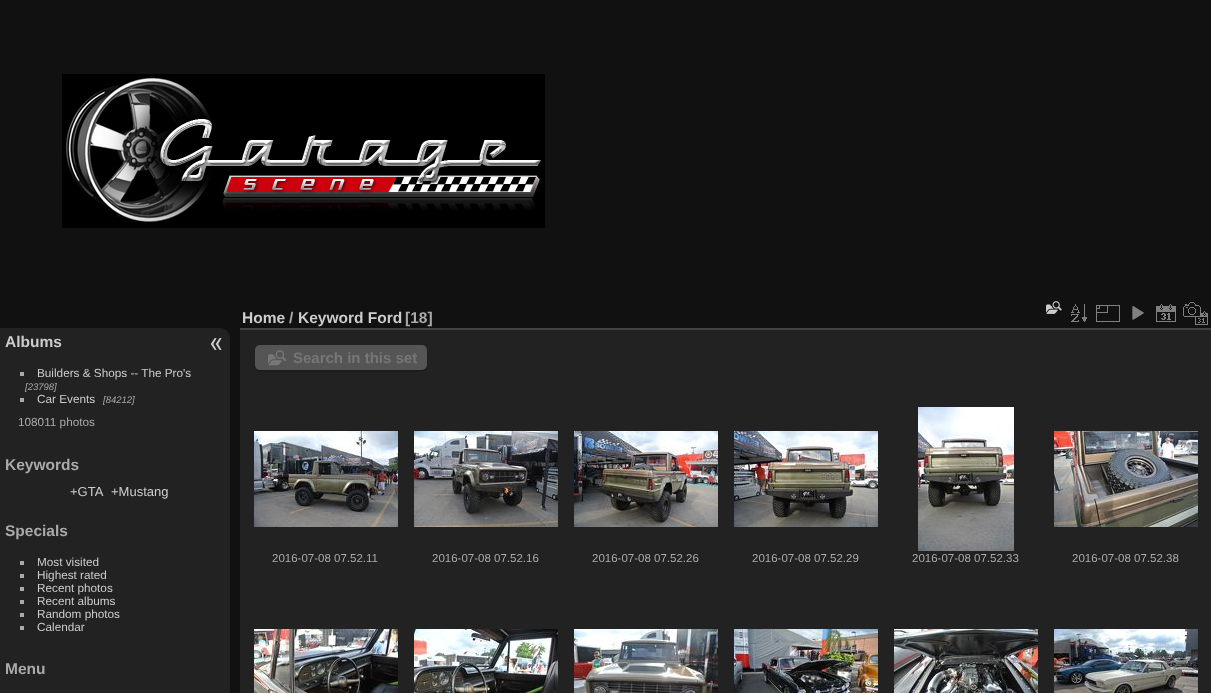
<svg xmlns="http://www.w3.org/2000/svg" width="1211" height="693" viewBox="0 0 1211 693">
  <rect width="100%" height="100%" fill="#111111"/>
  <image x="62" y="74" width="483" height="154" href="img1.png"/>
  <path d="M0 328H220C225.5 328 230 332.5 230 338V693C230 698.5 225.5 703 220 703H0Z" fill="#222222"/>
  <text x="5" y="347" font-family="Liberation Sans" font-size="15.5" font-weight="bold" fill="#cccccc">Albums</text>
  <rect x="20" y="372" width="4" height="4" fill="#aaaaaa"/>
  <text x="37" y="377" font-family="Liberation Sans" font-size="11.75" fill="#cccccc">Builders &amp; Shops -- The Pro's</text>
  <text x="25" y="390" font-family="Liberation Sans" font-size="9.5" font-style="italic" fill="#aaaaaa">[23798]</text>
  <rect x="20" y="398" width="4" height="4" fill="#aaaaaa"/>
  <text x="37" y="403" font-family="Liberation Sans" font-size="11.75" fill="#cccccc">Car Events</text>
  <text x="103" y="403" font-family="Liberation Sans" font-size="9.5" font-style="italic" fill="#aaaaaa">[84212]</text>
  <text x="18" y="426" font-family="Liberation Sans" font-size="11.75" fill="#aaaaaa">108011 photos</text>
  <text x="5" y="470" font-family="Liberation Sans" font-size="15.5" font-weight="bold" fill="#aaaaaa">Keywords</text>
  <text x="70" y="496" font-family="Liberation Sans" font-size="13" fill="#cccccc">+GTA</text>
  <text x="111" y="496" font-family="Liberation Sans" font-size="13" fill="#cccccc">+Mustang</text>
  <text x="5" y="536" font-family="Liberation Sans" font-size="15.5" font-weight="bold" fill="#aaaaaa">Specials</text>
  <rect x="20" y="561" width="4" height="4" fill="#aaaaaa"/>
  <text x="37" y="566" font-family="Liberation Sans" font-size="11.75" fill="#cccccc">Most visited</text>
  <rect x="20" y="574" width="4" height="4" fill="#aaaaaa"/>
  <text x="37" y="579" font-family="Liberation Sans" font-size="11.75" fill="#cccccc">Highest rated</text>
  <rect x="20" y="587" width="4" height="4" fill="#aaaaaa"/>
  <text x="37" y="592" font-family="Liberation Sans" font-size="11.75" fill="#cccccc">Recent photos</text>
  <rect x="20" y="600" width="4" height="4" fill="#aaaaaa"/>
  <text x="37" y="605" font-family="Liberation Sans" font-size="11.75" fill="#cccccc">Recent albums</text>
  <rect x="20" y="613" width="4" height="4" fill="#aaaaaa"/>
  <text x="37" y="618" font-family="Liberation Sans" font-size="11.75" fill="#cccccc">Random photos</text>
  <rect x="20" y="626" width="4" height="4" fill="#aaaaaa"/>
  <text x="37" y="631" font-family="Liberation Sans" font-size="11.75" fill="#cccccc">Calendar</text>
  <text x="5" y="674" font-family="Liberation Sans" font-size="15.5" font-weight="bold" fill="#aaaaaa">Menu</text>
  <image x="210" y="338" width="12" height="12" href="img2.png"/>
  <rect x="240" y="330" width="971" height="363" fill="#222222"/>
  <rect x="240" y="328" width="971" height="2" fill="#444444"/>
  <text x="242" y="323" font-family="Liberation Sans" font-size="15.5" font-weight="bold" fill="#cccccc">Home</text>
  <text x="289" y="323" font-family="Liberation Sans" font-size="15.5" font-weight="bold" fill="#aaaaaa">/</text>
  <text x="298" y="323" font-family="Liberation Sans" font-size="15.5" font-weight="bold" fill="#cccccc">Keyword Ford</text>
  <text x="405" y="323" font-family="Liberation Sans" font-size="15.5" font-weight="bold" fill="#aaaaaa">[18]</text>
  <image x="1046" y="301" width="16" height="13" href="img3.png"/>
  <image x="1071" y="304" width="16" height="18" href="img4.png"/>
  <image x="1096" y="305" width="24" height="17" href="img5.png"/>
  <image x="1132" y="306" width="12" height="14" href="img6.png"/>
  <image x="1156" y="304" width="20" height="18" href="img7.png"/>
  <image x="1183" y="302" width="25" height="23" href="img8.png"/>
  <path d="M255 365V367C255 370 257 372 260 372H422C425 372 427 370 427 367V365C427 368 425 370 422 370H260C257 370 255 368 255 365Z" fill="#1d1d1d"/>
  <rect x="255" y="345" width="172" height="25" rx="5" fill="#555555"/>
  <image x="268" y="350" width="19" height="16" href="img9.png"/>
  <text x="293" y="363" font-family="Liberation Sans" font-size="15" font-weight="bold" fill="#777777">Search in this set</text>
  <image x="254" y="431" width="144" height="96" href="img10.png"/>
  <text x="272" y="562" font-family="Liberation Sans" font-size="11.5" fill="#aaaaaa">2016-07-08 07.52.11</text>
  <image x="414" y="431" width="144" height="96" href="img11.png"/>
  <text x="432" y="562" font-family="Liberation Sans" font-size="11.5" fill="#aaaaaa">2016-07-08 07.52.16</text>
  <image x="574" y="431" width="144" height="96" href="img12.png"/>
  <text x="592" y="562" font-family="Liberation Sans" font-size="11.5" fill="#aaaaaa">2016-07-08 07.52.26</text>
  <image x="734" y="431" width="144" height="96" href="img13.png"/>
  <text x="752" y="562" font-family="Liberation Sans" font-size="11.5" fill="#aaaaaa">2016-07-08 07.52.29</text>
  <image x="918" y="407" width="96" height="144" href="img14.png"/>
  <text x="912" y="562" font-family="Liberation Sans" font-size="11.5" fill="#aaaaaa">2016-07-08 07.52.33</text>
  <image x="1054" y="431" width="144" height="96" href="img15.png"/>
  <text x="1072" y="562" font-family="Liberation Sans" font-size="11.5" fill="#aaaaaa">2016-07-08 07.52.38</text>
  <image x="254" y="629" width="144" height="64" href="img16.png"/>
  <image x="414" y="629" width="144" height="64" href="img17.png"/>
  <image x="574" y="629" width="144" height="64" href="img18.png"/>
  <image x="734" y="629" width="144" height="64" href="img19.png"/>
  <image x="894" y="629" width="144" height="64" href="img20.png"/>
  <image x="1054" y="629" width="144" height="64" href="img21.png"/>
</svg>
